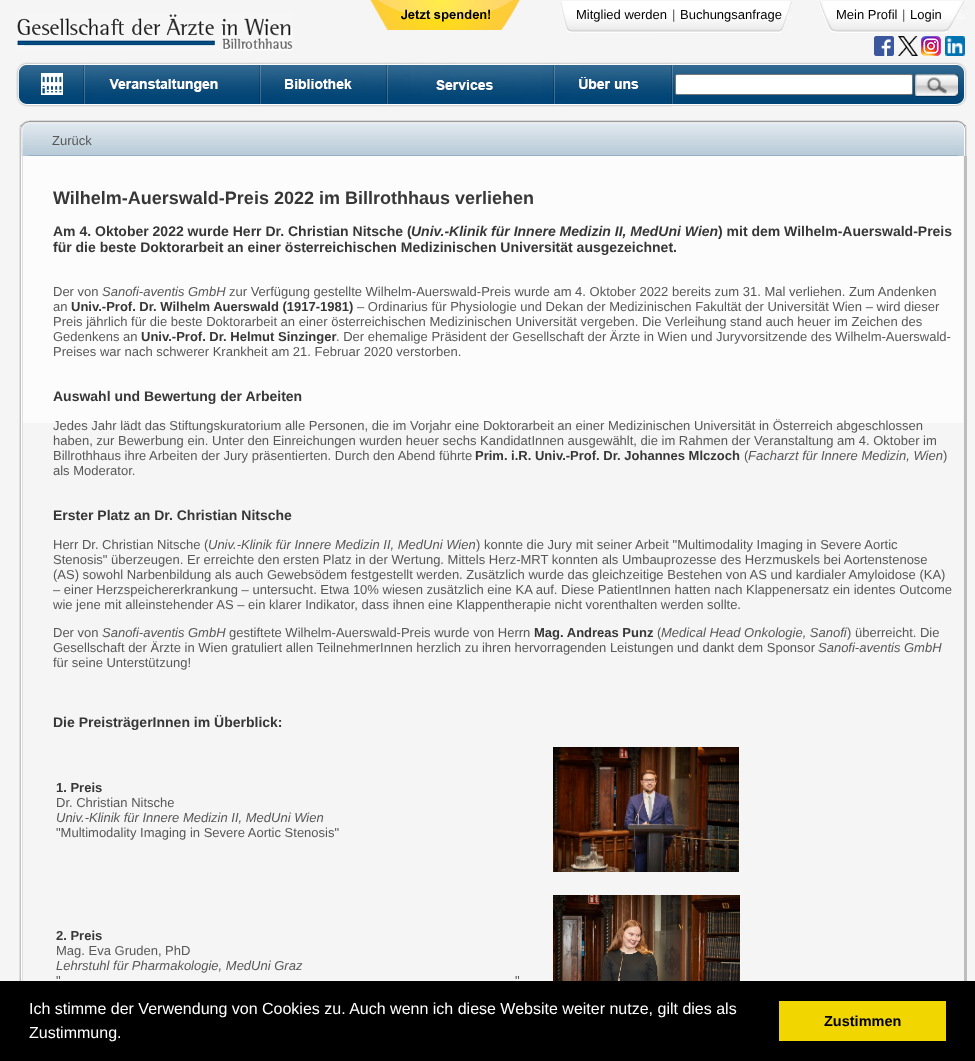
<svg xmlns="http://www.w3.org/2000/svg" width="975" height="1061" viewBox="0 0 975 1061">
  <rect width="100%" height="100%" fill="#f5f5f5"/>
  <image x="17" y="13" width="276" height="38" href="img1.png"/>
  <image x="370" y="0" width="150" height="30" href="img2.png"/>
  <image x="560" y="1" width="232" height="32" href="img3.png"/>
  <text x="576" y="19" font-family="Liberation Sans" font-size="13" fill="#000000">Mitglied werden</text>
  <text x="672" y="19" font-family="Liberation Sans" font-size="13" fill="#58585a">|</text>
  <text x="680" y="19" font-family="Liberation Sans" font-size="13" fill="#000000">Buchungsanfrage</text>
  <image x="819" y="1" width="146" height="32" href="img4.png"/>
  <text x="836" y="19" font-family="Liberation Sans" font-size="13" fill="#000000">Mein Profil</text>
  <text x="902" y="19" font-family="Liberation Sans" font-size="13" fill="#58585a">|</text>
  <text x="910" y="19" font-family="Liberation Sans" font-size="13" fill="#000000">Login</text>
  <image x="874" y="36" width="20" height="20" href="img5.png"/>
  <image x="898" y="36" width="20" height="20" href="img6.png"/>
  <image x="921" y="36" width="20" height="20" href="img7.png"/>
  <image x="945" y="36" width="20" height="20" href="img8.png"/>
  <image x="16" y="62" width="68" height="45" href="img9.png"/>
  <image x="84" y="62" width="176" height="45" href="img10.png"/>
  <image x="260" y="62" width="127" height="45" href="img11.png"/>
  <image x="387" y="62" width="167" height="45" href="img12.png"/>
  <image x="554" y="62" width="118" height="45" href="img13.png"/>
  <image x="672" y="62" width="295" height="44" href="img14.png"/>
  <rect x="675.5" y="74.5" width="237" height="20" rx="1.5" fill="#ffffff" stroke="#767676"/>
  <image x="915" y="74" width="43" height="23" href="img15.png"/>
  <image x="29" y="120" width="929" height="36" href="img16.png"/>
  <image x="958" y="120" width="9" height="36" href="img17.png"/>
  <image x="19" y="120" width="10" height="36" href="img18.png"/>
  <text x="52" y="145" font-family="Liberation Sans" font-size="13" fill="#58585a">Zurück</text>
  <image x="19" y="156" width="4" height="825" href="img19.png"/>
  <rect x="964" y="156" width="3" height="825" fill="#bdbdbd"/>
  <rect x="23" y="156" width="940" height="267" fill="#fcfcfc"/>
  <text x="53" y="204" font-family="Liberation Sans" font-size="18" font-weight="bold" fill="#383737">Wilhelm-Auerswald-Preis 2022 im Billrothhaus verliehen</text>
  <text x="53" y="236" font-family="Liberation Sans" font-size="14" font-weight="bold" fill="#383737">Am 4. Oktober 2022 wurde Herr Dr. Christian Nitsche (</text>
  <text x="411" y="236" font-family="Liberation Sans" font-size="14" font-weight="bold" font-style="italic" fill="#383737">Univ.-Klinik für Innere Medizin II, MedUni Wien</text>
  <text x="718" y="236" font-family="Liberation Sans" font-size="14" font-weight="bold" fill="#383737">) mit dem Wilhelm-Auerswald-Preis</text>
  <text x="53" y="252" font-family="Liberation Sans" font-size="14" font-weight="bold" fill="#383737">für die beste Doktorarbeit an einer österreichischen Medizinischen Universität ausgezeichnet.</text>
  <text x="53" y="296" font-family="Liberation Sans" font-size="13" fill="#58585a">Der von</text>
  <text x="102" y="296" font-family="Liberation Sans" font-size="13" font-style="italic" fill="#58585a">Sanofi-aventis GmbH</text>
  <text x="229" y="296" font-family="Liberation Sans" font-size="13" fill="#58585a">zur Verfügung gestellte Wilhelm-Auerswald-Preis wurde am 4. Oktober 2022 bereits zum 31. Mal verliehen. Zum Andenken</text>
  <text x="53" y="311" font-family="Liberation Sans" font-size="13" fill="#58585a">an</text>
  <text x="71" y="311" font-family="Liberation Sans" font-size="13" font-weight="bold" fill="#383737">Univ.-Prof. Dr. Wilhelm Auerswald (1917-1981)</text>
  <text x="357" y="311" font-family="Liberation Sans" font-size="13" fill="#58585a">– Ordinarius für Physiologie und Dekan der Medizinischen Fakultät der Universität Wien – wird dieser</text>
  <text x="53" y="326" font-family="Liberation Sans" font-size="13" fill="#58585a">Preis jährlich für die beste Doktorarbeit an einer österreichischen Medizinischen Universität vergeben. Die Verleihung stand auch heuer im Zeichen des</text>
  <text x="53" y="341" font-family="Liberation Sans" font-size="13" fill="#58585a">Gedenkens an</text>
  <text x="141" y="341" font-family="Liberation Sans" font-size="13" font-weight="bold" fill="#383737">Univ.-Prof. Dr. Helmut Sinzinger</text>
  <text x="336" y="341" font-family="Liberation Sans" font-size="13" fill="#58585a">. Der ehemalige Präsident der Gesellschaft der Ärzte in Wien und Juryvorsitzende des Wilhelm-Auerswald-</text>
  <text x="53" y="356" font-family="Liberation Sans" font-size="13" fill="#58585a">Preises war nach schwerer Krankheit am 21. Februar 2020 verstorben.</text>
  <text x="53" y="401" font-family="Liberation Sans" font-size="14" font-weight="bold" fill="#383737">Auswahl und Bewertung der Arbeiten</text>
  <text x="53" y="430" font-family="Liberation Sans" font-size="13" fill="#58585a">Jedes Jahr lädt das Stiftungskuratorium alle Personen, die im Vorjahr eine Doktorarbeit an einer Medizinischen Universität in Österreich abgeschlossen</text>
  <text x="53" y="445" font-family="Liberation Sans" font-size="13" fill="#58585a">haben, zur Bewerbung ein. Unter den Einreichungen wurden heuer sechs KandidatInnen ausgewählt, die im Rahmen der Veranstaltung am 4. Oktober im</text>
  <text x="53" y="460" font-family="Liberation Sans" font-size="13" fill="#58585a">Billrothhaus ihre Arbeiten der Jury präsentierten. Durch den Abend führte</text>
  <text x="475" y="460" font-family="Liberation Sans" font-size="13" font-weight="bold" fill="#383737">Prim. i.R. Univ.-Prof. Dr. Johannes Mlczoch</text>
  <text x="744" y="460" font-family="Liberation Sans" font-size="13" fill="#58585a">(</text>
  <text x="748" y="460" font-family="Liberation Sans" font-size="13" font-style="italic" fill="#58585a">Facharzt für Innere Medizin, Wien</text>
  <text x="943" y="460" font-family="Liberation Sans" font-size="13" fill="#58585a">)</text>
  <text x="53" y="475" font-family="Liberation Sans" font-size="13" fill="#58585a">als Moderator.</text>
  <text x="53" y="520" font-family="Liberation Sans" font-size="14" font-weight="bold" fill="#383737">Erster Platz an Dr. Christian Nitsche</text>
  <text x="53" y="549" font-family="Liberation Sans" font-size="13" fill="#58585a">Herr Dr. Christian Nitsche (</text>
  <text x="208" y="549" font-family="Liberation Sans" font-size="13" font-style="italic" fill="#58585a">Univ.-Klinik für Innere Medizin II, MedUni Wien</text>
  <text x="476" y="549" font-family="Liberation Sans" font-size="13" fill="#58585a">) konnte die Jury mit seiner Arbeit "Multimodality Imaging in Severe Aortic</text>
  <text x="53" y="564" font-family="Liberation Sans" font-size="13" fill="#58585a">Stenosis" überzeugen. Er erreichte den ersten Platz in der Wertung. Mittels Herz-MRT konnten als Umbauprozesse des Herzmuskels bei Aortenstenose</text>
  <text x="53" y="579" font-family="Liberation Sans" font-size="13" fill="#58585a">(AS) sowohl Narbenbildung als auch Gewebsödem festgestellt werden. Zusätzlich wurde das gleichzeitige Bestehen von AS und kardialer Amyloidose (KA)</text>
  <text x="53" y="594" font-family="Liberation Sans" font-size="13" fill="#58585a">– einer Herzspeichererkrankung – untersucht. Etwa 10% wiesen zusätzlich eine KA auf. Diese PatientInnen hatten nach Klappenersatz ein identes Outcome</text>
  <text x="53" y="609" font-family="Liberation Sans" font-size="13" fill="#58585a">wie jene mit alleinstehender AS – ein klarer Indikator, dass ihnen eine Klappentherapie nicht vorenthalten werden sollte.</text>
  <text x="53" y="637" font-family="Liberation Sans" font-size="13" fill="#58585a">Der von</text>
  <text x="102" y="637" font-family="Liberation Sans" font-size="13" font-style="italic" fill="#58585a">Sanofi-aventis GmbH</text>
  <text x="229" y="637" font-family="Liberation Sans" font-size="13" fill="#58585a">gestiftete Wilhelm-Auerswald-Preis wurde von Herrn</text>
  <text x="534" y="637" font-family="Liberation Sans" font-size="13" font-weight="bold" fill="#383737">Mag. Andreas Punz</text>
  <text x="657" y="637" font-family="Liberation Sans" font-size="13" fill="#58585a">(</text>
  <text x="661" y="637" font-family="Liberation Sans" font-size="13" font-style="italic" fill="#58585a">Medical Head Onkologie, Sanofi</text>
  <text x="847" y="637" font-family="Liberation Sans" font-size="13" fill="#58585a">) überreicht. Die</text>
  <text x="53" y="652" font-family="Liberation Sans" font-size="13" fill="#58585a">Gesellschaft der Ärzte in Wien gratuliert allen TeilnehmerInnen herzlich zu ihren hervorragenden Leistungen und dankt dem Sponsor</text>
  <text x="818" y="652" font-family="Liberation Sans" font-size="13" font-style="italic" fill="#58585a">Sanofi-aventis GmbH</text>
  <text x="53" y="667" font-family="Liberation Sans" font-size="13" fill="#58585a">für seine Unterstützung!</text>
  <text x="53" y="727" font-family="Liberation Sans" font-size="14" font-weight="bold" fill="#383737">Die PreisträgerInnen im Überblick:</text>
  <text x="56" y="792" font-family="Liberation Sans" font-size="13" font-weight="bold" fill="#383737">1. Preis</text>
  <text x="56" y="807" font-family="Liberation Sans" font-size="13" fill="#58585a">Dr. Christian Nitsche</text>
  <text x="56" y="822" font-family="Liberation Sans" font-size="13" font-style="italic" fill="#58585a">Univ.-Klinik für Innere Medizin II, MedUni Wien</text>
  <text x="56" y="837" font-family="Liberation Sans" font-size="13" fill="#58585a">"Multimodality Imaging in Severe Aortic Stenosis"</text>
  <image x="553" y="747" width="186" height="125" href="img20.png"/>
  <text x="56" y="940" font-family="Liberation Sans" font-size="13" font-weight="bold" fill="#383737">2. Preis</text>
  <text x="56" y="955" font-family="Liberation Sans" font-size="13" fill="#58585a">Mag. Eva Gruden, PhD</text>
  <text x="56" y="970" font-family="Liberation Sans" font-size="13" font-style="italic" fill="#58585a">Lehrstuhl für Pharmakologie, MedUni Graz</text>
  <text x="56" y="985" font-family="Liberation Sans" font-size="13" fill="#58585a">"</text>
  <text x="515" y="985" font-family="Liberation Sans" font-size="13" fill="#58585a">"</text>
  <image x="553" y="895" width="187" height="86" href="img21.png"/>
  <rect x="0" y="981" width="975" height="80" fill="#000000"/>
  <text x="29" y="1014" font-family="Liberation Sans" font-size="16" fill="#ffffff">Ich stimme der Verwendung von Cookies zu. Auch wenn ich diese Website weiter nutze, gilt dies als</text>
  <text x="29" y="1038" font-family="Liberation Sans" font-size="16" fill="#ffffff">Zustimmung.</text>
  <rect x="779" y="1001" width="167" height="40" fill="#f1d600"/>
  <text x="824" y="1026" font-family="Liberation Sans" font-size="14.5" font-weight="bold" fill="#000000">Zustimmen</text>
</svg>
